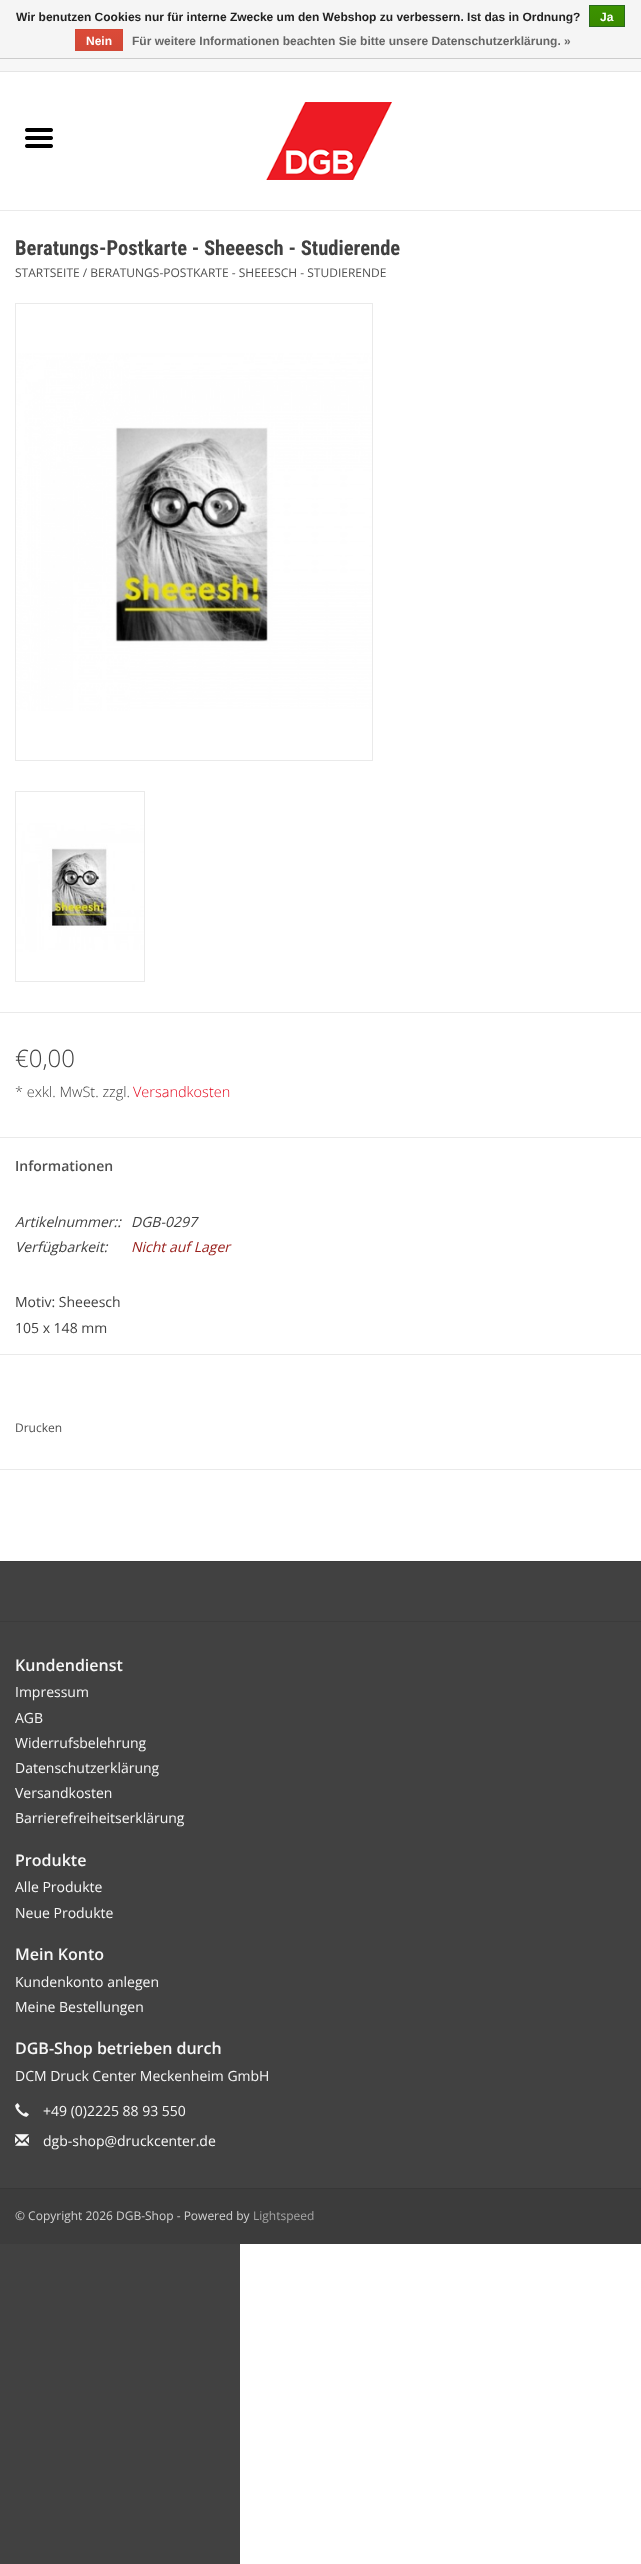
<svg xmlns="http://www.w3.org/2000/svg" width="641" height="2564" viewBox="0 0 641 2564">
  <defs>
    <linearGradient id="g1" gradientUnits="userSpaceOnUse" x1="607" y1="6" x2="607" y2="26"><stop offset="0" stop-color="#3c9300"/><stop offset="1" stop-color="#398a00"/></linearGradient>
    <linearGradient id="g2" gradientUnits="userSpaceOnUse" x1="99" y1="30" x2="99" y2="50"><stop offset="0" stop-color="#dc4a38"/><stop offset="1" stop-color="#d14836"/></linearGradient>
  </defs>
  <rect width="100%" height="100%" fill="#ffffff"/>
  <rect x="0" y="0" width="641" height="58" fill="#f5f5f5"/>
  <rect x="0" y="58" width="641" height="1" fill="#cccccc"/>
  <text x="16" y="21" font-family="Liberation Sans" font-size="12" font-weight="bold" fill="#222222">Wir benutzen Cookies nur für interne Zwecke um den Webshop zu verbessern. Ist das in Ordnung?</text>
  <rect x="590" y="6" width="34" height="20" fill="url(#g1)"/>
  <rect x="589.5" y="5.5" width="35" height="21" fill="none" stroke="#29691d"/>
  <text x="600" y="21" font-family="Liberation Sans" font-size="12" font-weight="bold" fill="#ffffff">Ja</text>
  <rect x="76" y="30" width="46" height="20" fill="url(#g2)"/>
  <rect x="75.5" y="29.5" width="47" height="21" fill="none" stroke="#d14836"/>
  <text x="86" y="45" font-family="Liberation Sans" font-size="12" font-weight="bold" fill="#ffffff">Nein</text>
  <text x="132" y="45" font-family="Liberation Sans" font-size="12" font-weight="bold" fill="#666666">Für weitere Informationen beachten Sie bitte unsere Datenschutzerklärung. »</text>
  <rect x="0" y="59" width="641" height="12" fill="#f7f7f7"/>
  <rect x="0" y="71" width="641" height="1" fill="#e5e5e5"/>
  <rect x="0" y="210" width="641" height="1" fill="#eaeaea"/>
  <image x="266" y="102" width="126" height="78" href="img1.png"/>
  <image x="25" y="128" width="28" height="20" href="img2.png"/>
  <rect x="0" y="2244" width="240" height="320" fill="#414141"/>
  <text x="15" y="255" font-family="Roboto Condensed" font-size="20.6" font-weight="bold" fill="#414141">Beratungs-Postkarte - Sheeesch - Studierende</text>
  <text x="15" y="277" font-family="Open Sans" font-size="12" fill="#505050">STARTSEITE / BERATUNGS-POSTKARTE - SHEEESCH - STUDIERENDE</text>
  <rect x="15.5" y="303.5" width="357" height="457" fill="none" stroke="#eaeaea"/>
  <image x="16" y="304" width="356" height="456" href="img3.png"/>
  <rect x="15.5" y="791.5" width="129" height="190" fill="none" stroke="#eaeaea"/>
  <image x="16" y="792" width="128" height="189" href="img4.png"/>
  <rect x="0" y="1012" width="641" height="1" fill="#eaeaea"/>
  <text x="15" y="1067" font-family="Open Sans" font-size="24" font-weight="300" fill="#414141">€0,00</text>
  <text x="15" y="1097" font-family="Open Sans" font-size="14.5" font-weight="300" fill="#414141">* exkl. MwSt. zzgl.</text>
  <text x="133" y="1097" font-family="Open Sans" font-size="14.5" font-weight="300" fill="#e3051b">Versandkosten</text>
  <rect x="0" y="1137" width="641" height="1" fill="#eaeaea"/>
  <text x="15" y="1171" font-family="Open Sans" font-size="14" font-weight="600" fill="#505050">Informationen</text>
  <text x="15" y="1227" font-family="Open Sans" font-size="14" font-style="italic" fill="#414141">Artikelnummer::</text>
  <text x="131" y="1227" font-family="Open Sans" font-size="14" font-style="italic" fill="#414141">DGB-0297</text>
  <text x="15" y="1252" font-family="Open Sans" font-size="14" font-style="italic" fill="#414141">Verfügbarkeit:</text>
  <text x="131" y="1252" font-family="Open Sans" font-size="14" font-style="italic" fill="#9a211d">Nicht auf Lager</text>
  <text x="15" y="1307" font-family="Open Sans" font-size="14" fill="#414141">Motiv: Sheeesch</text>
  <text x="15" y="1333" font-family="Open Sans" font-size="14" fill="#414141">105 x 148 mm</text>
  <rect x="0" y="1354" width="641" height="1" fill="#eaeaea"/>
  <rect x="0" y="1469" width="641" height="1" fill="#eaeaea"/>
  <text x="15" y="1432" font-family="Open Sans" font-size="12" fill="#505050">Drucken</text>
  <rect x="0" y="1562" width="641" height="626" fill="#414141"/>
  <rect x="0" y="1561" width="641" height="1" fill="#3b3b3b"/>
  <rect x="0" y="1621" width="641" height="1" fill="#3b3b3b"/>
  <text x="15" y="1671" font-family="Open Sans" font-size="16" font-weight="600" fill="#f7f7f7">Kundendienst</text>
  <text x="15" y="1697" font-family="Open Sans" font-size="14" fill="#f7f7f7">Impressum</text>
  <text x="15" y="1723" font-family="Open Sans" font-size="14" fill="#f7f7f7">AGB</text>
  <text x="15" y="1748" font-family="Open Sans" font-size="14" fill="#f7f7f7">Widerrufsbelehrung</text>
  <text x="15" y="1773" font-family="Open Sans" font-size="14" fill="#f7f7f7">Datenschutzerklärung</text>
  <text x="15" y="1798" font-family="Open Sans" font-size="14" fill="#f7f7f7">Versandkosten</text>
  <text x="15" y="1823" font-family="Open Sans" font-size="14" fill="#f7f7f7">Barrierefreiheitserklärung</text>
  <text x="15" y="1866" font-family="Open Sans" font-size="16" font-weight="600" fill="#f7f7f7">Produkte</text>
  <text x="15" y="1892" font-family="Open Sans" font-size="14" fill="#f7f7f7">Alle Produkte</text>
  <text x="15" y="1918" font-family="Open Sans" font-size="14" fill="#f7f7f7">Neue Produkte</text>
  <text x="15" y="1960" font-family="Open Sans" font-size="16" font-weight="600" fill="#f7f7f7">Mein Konto</text>
  <text x="15" y="1987" font-family="Open Sans" font-size="14" fill="#f7f7f7">Kundenkonto anlegen</text>
  <text x="15" y="2012" font-family="Open Sans" font-size="14" fill="#f7f7f7">Meine Bestellungen</text>
  <text x="15" y="2054" font-family="Open Sans" font-size="16" font-weight="600" fill="#f7f7f7">DGB-Shop betrieben durch</text>
  <text x="15" y="2081" font-family="Open Sans" font-size="14" fill="#f7f7f7">DCM Druck Center Meckenheim GmbH</text>
  <image x="15" y="2103" width="14" height="14" href="img5.png"/>
  <text x="43" y="2116" font-family="Open Sans" font-size="14" fill="#f7f7f7">+49 (0)2225 88 93 550</text>
  <image x="15" y="2134" width="14" height="12" href="img6.png"/>
  <text x="43" y="2146" font-family="Open Sans" font-size="14" fill="#f7f7f7">dgb-shop@druckcenter.de</text>
  <rect x="0" y="2188" width="641" height="1" fill="#373737"/>
  <rect x="0" y="2189" width="641" height="55" fill="#3c3c3c"/>
  <text x="15" y="2220" font-family="Open Sans" font-size="12" fill="#d2d2d2">© Copyright 2026 DGB-Shop - Powered by</text>
  <text x="253" y="2220" font-family="Open Sans" font-size="12" fill="#a5a5a5">Lightspeed</text>
</svg>
